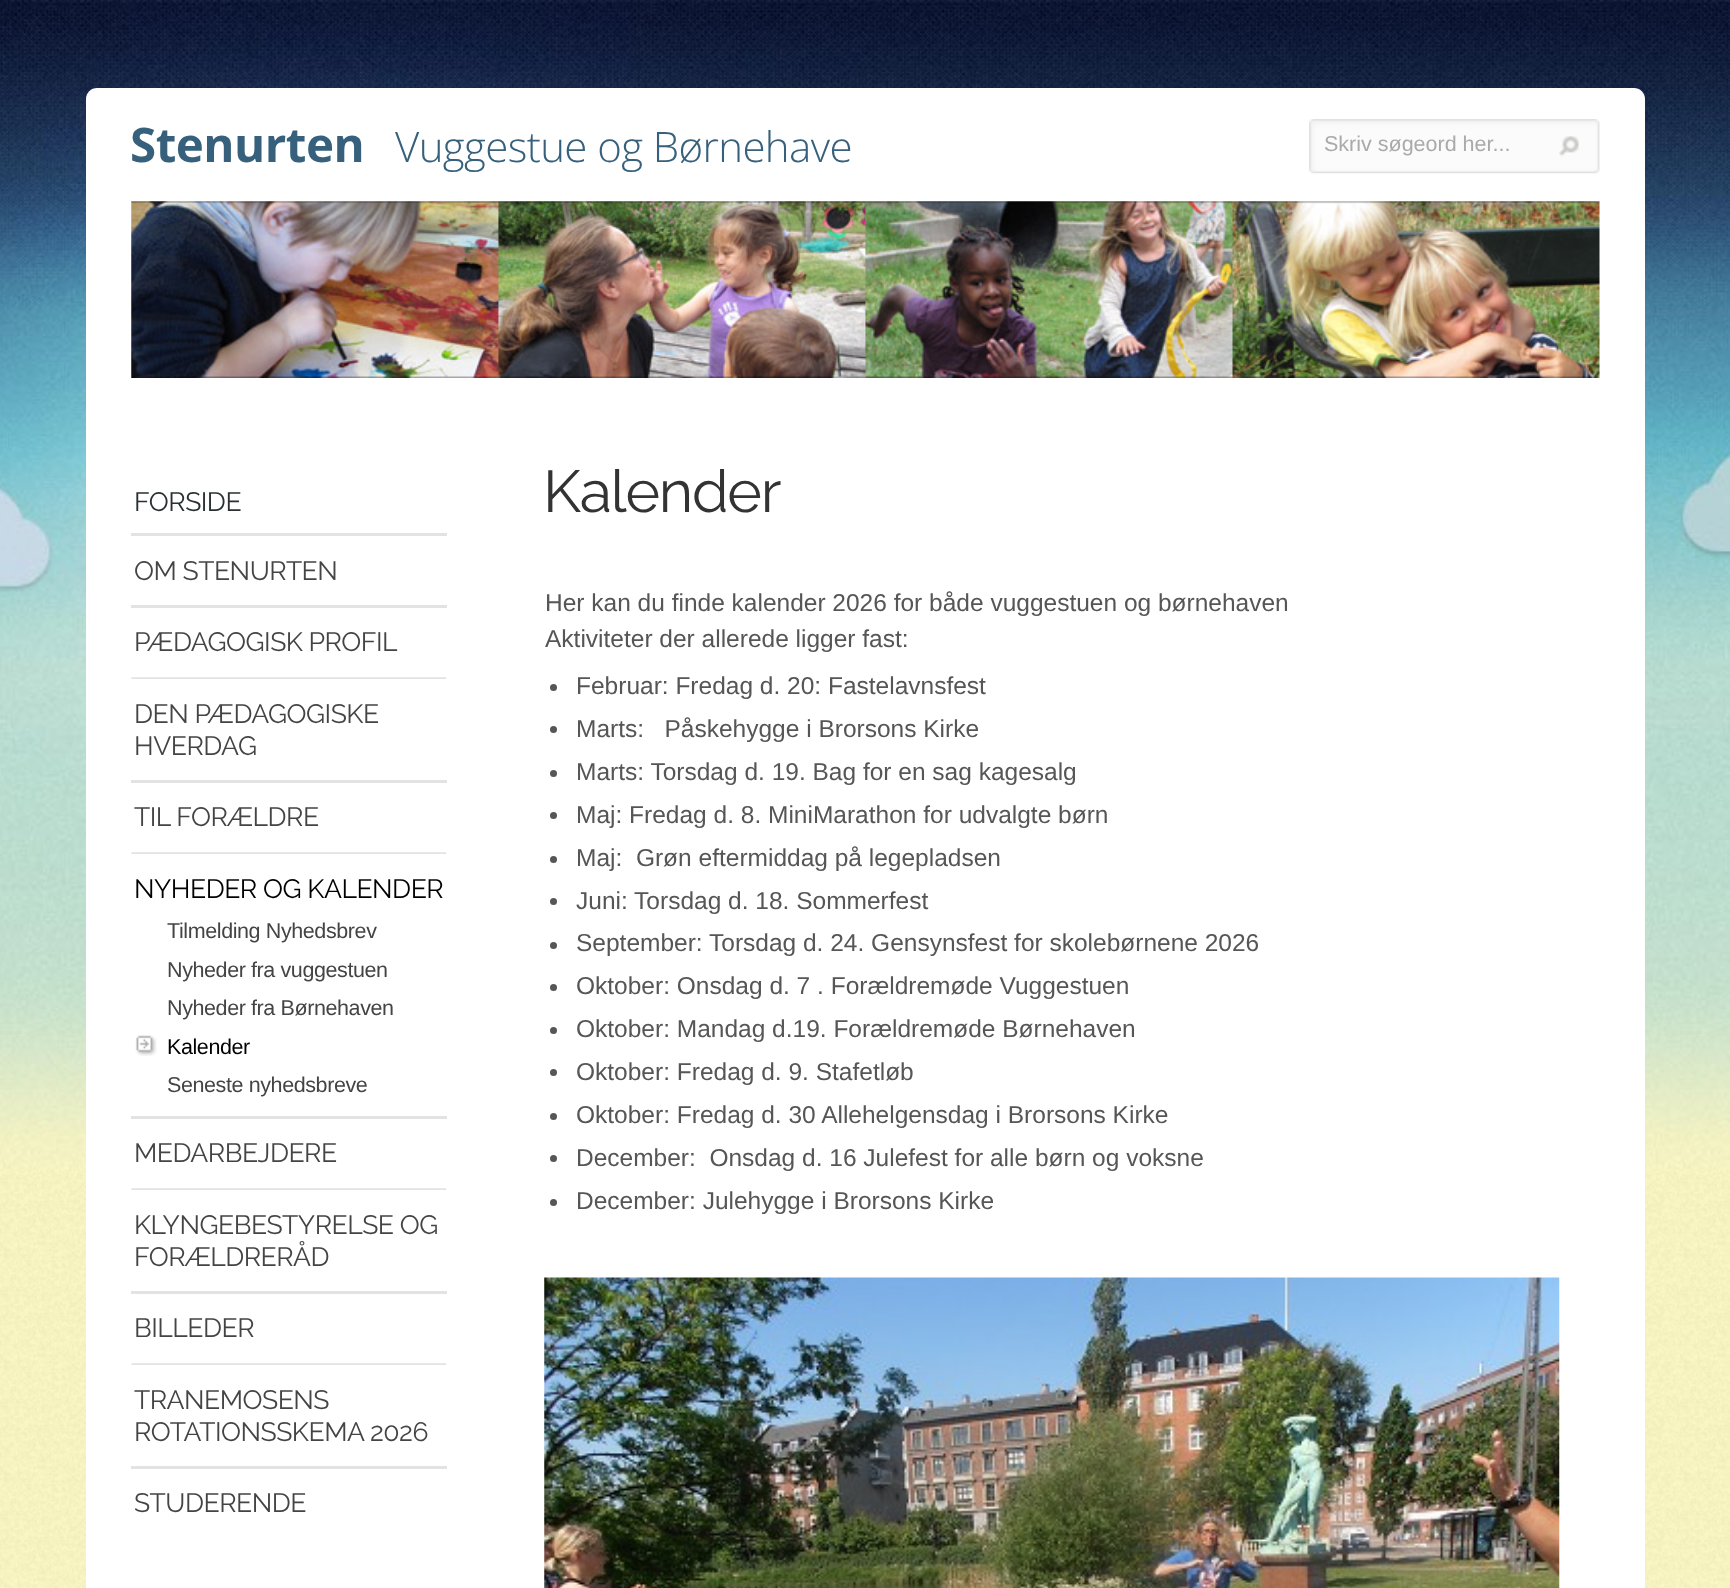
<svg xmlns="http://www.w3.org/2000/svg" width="1730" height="1588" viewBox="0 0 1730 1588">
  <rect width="100%" height="100%" fill="#ffffff"/>
  <image x="0" y="1169" width="1730" height="419" href="img1.png"/>
  <image x="0" y="997" width="1730" height="172" href="img2.png"/>
  <image x="0" y="0" width="1730" height="998" href="img3.png"/>
  <rect x="86" y="88" width="1559" height="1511" rx="11" fill="#ffffff"/>
  <text x="130" y="162" font-family="Open Sans" font-size="47.5" font-weight="bold" letter-spacing="-0.5" fill="#36607b">Stenurten</text>
  <text x="395" y="162" font-family="Open Sans" font-size="42" font-weight="300" letter-spacing="-0.6" fill="#36607b">Vuggestue og Børnehave</text>
  <image x="1309" y="119" width="291" height="55" href="img4.png"/>
  <text x="1324" y="151" font-family="Liberation Sans" font-size="21.5" fill="#aaaaaa">Skriv søgeord her...</text>
  <image x="1559" y="136" width="20" height="20" href="img5.png"/>
  <image x="131" y="201" width="1469" height="177" href="img6.png"/>
  <text x="134" y="511" font-family="Raleway" font-size="26.6" letter-spacing="-0.5" fill="#283032">FORSIDE</text>
  <rect x="131" y="533" width="316" height="3" fill="#e3e3e3"/>
  <text x="134" y="580" font-family="Raleway" font-size="26.6" letter-spacing="-0.5" fill="#444444">OM STENURTEN</text>
  <rect x="131" y="605" width="316" height="3" fill="#e3e3e3"/>
  <text x="134" y="651" font-family="Raleway" font-size="26.6" letter-spacing="-0.5" fill="#444444">PÆDAGOGISK PROFIL</text>
  <image x="131" y="677" width="316" height="2" href="img7.png"/>
  <text x="134" y="723" font-family="Raleway" font-size="26.6" letter-spacing="-0.5" fill="#444444">DEN PÆDAGOGISKE</text>
  <text x="134" y="755" font-family="Raleway" font-size="26.6" letter-spacing="-0.5" fill="#444444">HVERDAG</text>
  <rect x="131" y="780" width="316" height="3" fill="#e3e3e3"/>
  <text x="134" y="826" font-family="Raleway" font-size="26.6" letter-spacing="-0.5" fill="#444444">TIL FORÆLDRE</text>
  <image x="131" y="852" width="316" height="2" href="img7.png"/>
  <text x="134" y="898" font-family="Raleway" font-size="26.6" letter-spacing="-0.5" fill="#000000">NYHEDER OG KALENDER</text>
  <text x="167" y="938" font-family="Liberation Sans" font-size="21.5" letter-spacing="-0.4" fill="#444444">Tilmelding Nyhedsbrev</text>
  <text x="167" y="977" font-family="Liberation Sans" font-size="21.5" letter-spacing="-0.4" fill="#444444">Nyheder fra vuggestuen</text>
  <text x="167" y="1015" font-family="Liberation Sans" font-size="21.5" letter-spacing="-0.4" fill="#444444">Nyheder fra Børnehaven</text>
  <image x="135" y="1035" width="22" height="21" href="img8.png"/>
  <text x="167" y="1054" font-family="Liberation Sans" font-size="21.5" letter-spacing="-0.4" fill="#000000">Kalender</text>
  <text x="167" y="1092" font-family="Liberation Sans" font-size="21.5" letter-spacing="-0.4" fill="#444444">Seneste nyhedsbreve</text>
  <rect x="131" y="1116" width="316" height="3" fill="#e3e3e3"/>
  <text x="134" y="1162" font-family="Raleway" font-size="26.6" letter-spacing="-0.5" fill="#444444">MEDARBEJDERE</text>
  <image x="131" y="1188" width="316" height="2" href="img7.png"/>
  <text x="134" y="1234" font-family="Raleway" font-size="26.6" letter-spacing="-0.5" fill="#444444">KLYNGEBESTYRELSE OG</text>
  <text x="134" y="1266" font-family="Raleway" font-size="26.6" letter-spacing="-0.5" fill="#444444">FORÆLDRERÅD</text>
  <rect x="131" y="1291" width="316" height="3" fill="#e3e3e3"/>
  <text x="134" y="1337" font-family="Raleway" font-size="26.6" letter-spacing="-0.5" fill="#444444">BILLEDER</text>
  <image x="131" y="1363" width="316" height="2" href="img7.png"/>
  <text x="134" y="1409" font-family="Raleway" font-size="26.6" letter-spacing="-0.5" fill="#444444">TRANEMOSENS</text>
  <text x="134" y="1441" font-family="Raleway" font-size="26.6" letter-spacing="-0.5" fill="#444444">ROTATIONSSKEMA 2026</text>
  <rect x="131" y="1466" width="316" height="3" fill="#e3e3e3"/>
  <text x="134" y="1512" font-family="Raleway" font-size="26.6" letter-spacing="-0.5" fill="#444444">STUDERENDE</text>
  <text x="543" y="512" font-family="Raleway" font-size="59" letter-spacing="-1.25" fill="#333333">Kalender</text>
  <text x="545" y="611" font-family="Liberation Sans" font-size="24.5" fill="#565656">Her kan du finde kalender 2026 for både vuggestuen og børnehaven</text>
  <text x="545" y="647" font-family="Liberation Sans" font-size="24.5" fill="#565656">Aktiviteter der allerede ligger fast:</text>
  <circle cx="553.5" cy="687.5" r="3.5" fill="#565656"/>
  <text x="576" y="694" font-family="Liberation Sans" font-size="24.5" fill="#565656">Februar: Fredag d. 20: Fastelavnsfest</text>
  <circle cx="553.5" cy="729.5" r="3.5" fill="#565656"/>
  <text x="576" y="737" font-family="Liberation Sans" font-size="24.5" fill="#565656" xml:space="preserve">Marts:   Påskehygge i Brorsons Kirke</text>
  <circle cx="553.5" cy="773.5" r="3.5" fill="#565656"/>
  <text x="576" y="780" font-family="Liberation Sans" font-size="24.5" fill="#565656">Marts: Torsdag d. 19. Bag for en sag kagesalg</text>
  <circle cx="553.5" cy="815.5" r="3.5" fill="#565656"/>
  <text x="576" y="823" font-family="Liberation Sans" font-size="24.5" fill="#565656">Maj: Fredag d. 8. MiniMarathon for udvalgte børn</text>
  <circle cx="553.5" cy="859.5" r="3.5" fill="#565656"/>
  <text x="576" y="866" font-family="Liberation Sans" font-size="24.5" fill="#565656" xml:space="preserve">Maj:  Grøn eftermiddag på legepladsen</text>
  <circle cx="553.5" cy="901.5" r="3.5" fill="#565656"/>
  <text x="576" y="909" font-family="Liberation Sans" font-size="24.5" fill="#565656">Juni: Torsdag d. 18. Sommerfest</text>
  <circle cx="553.5" cy="945.5" r="3.5" fill="#565656"/>
  <text x="576" y="951" font-family="Liberation Sans" font-size="24.5" fill="#565656">September: Torsdag d. 24. Gensynsfest for skolebørnene 2026</text>
  <circle cx="553.5" cy="987.5" r="3.5" fill="#565656"/>
  <text x="576" y="994" font-family="Liberation Sans" font-size="24.5" fill="#565656">Oktober: Onsdag d. 7 . Forældremøde Vuggestuen</text>
  <circle cx="553.5" cy="1030.5" r="3.5" fill="#565656"/>
  <text x="576" y="1037" font-family="Liberation Sans" font-size="24.5" fill="#565656">Oktober: Mandag d.19. Forældremøde Børnehaven</text>
  <circle cx="553.5" cy="1072.5" r="3.5" fill="#565656"/>
  <text x="576" y="1080" font-family="Liberation Sans" font-size="24.5" fill="#565656">Oktober: Fredag d. 9. Stafetløb</text>
  <circle cx="553.5" cy="1116.5" r="3.5" fill="#565656"/>
  <text x="576" y="1123" font-family="Liberation Sans" font-size="24.5" fill="#565656">Oktober: Fredag d. 30 Allehelgensdag i Brorsons Kirke</text>
  <circle cx="553.5" cy="1158.5" r="3.5" fill="#565656"/>
  <text x="576" y="1166" font-family="Liberation Sans" font-size="24.5" fill="#565656" xml:space="preserve">December:  Onsdag d. 16 Julefest for alle børn og voksne</text>
  <circle cx="553.5" cy="1202.5" r="3.5" fill="#565656"/>
  <text x="576" y="1209" font-family="Liberation Sans" font-size="24.5" fill="#565656">December: Julehygge i Brorsons Kirke</text>
  <image x="544" y="1277" width="1016" height="311" href="img9.png"/>
</svg>
